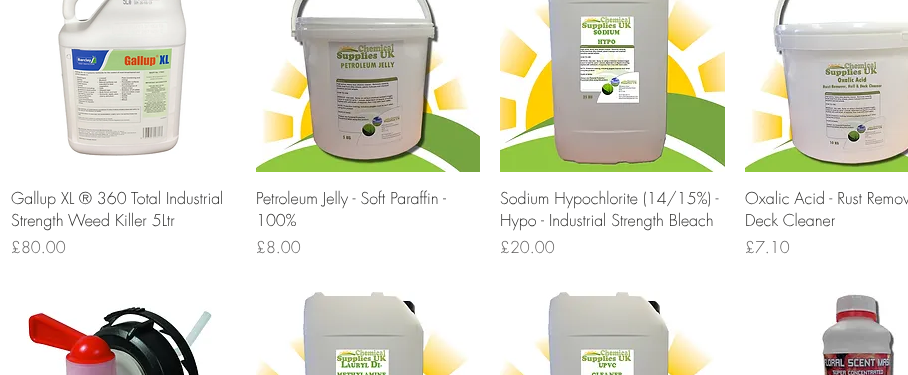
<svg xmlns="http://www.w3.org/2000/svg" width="908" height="375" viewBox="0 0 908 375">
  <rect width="100%" height="100%" fill="#ffffff"/>
  <image x="58" y="0" width="129" height="156" href="img1.png"/>
  <text x="11" y="204" font-family="futura" font-size="16" font-weight="300" fill="#2c2c2b">Gallup XL ® 360 Total Industrial</text>
  <text x="11" y="226" font-family="futura" font-size="16" font-weight="300" fill="#2c2c2b">Strength Weed Killer 5Ltr</text>
  <text x="11" y="253" font-family="futura" font-size="16" font-weight="300" fill="#5e5d5d">£80.00</text>
  <image x="256" y="0" width="224" height="172" href="img2.png"/>
  <text x="256" y="204" font-family="futura" font-size="16" font-weight="300" fill="#2c2c2b">Petroleum Jelly - Soft Paraffin -</text>
  <text x="256" y="226" font-family="futura" font-size="16" font-weight="300" fill="#2c2c2b">100%</text>
  <text x="256" y="253" font-family="futura" font-size="16" font-weight="300" fill="#5e5d5d">£8.00</text>
  <image x="500" y="0" width="225" height="172" href="img3.png"/>
  <text x="500" y="204" font-family="futura" font-size="16" font-weight="300" fill="#2c2c2b">Sodium Hypochlorite (14/15%) -</text>
  <text x="500" y="226" font-family="futura" font-size="16" font-weight="300" fill="#2c2c2b">Hypo - Industrial Strength Bleach</text>
  <text x="500" y="253" font-family="futura" font-size="16" font-weight="300" fill="#5e5d5d">£20.00</text>
  <image x="745" y="0" width="163" height="172" href="img4.png"/>
  <text x="745" y="204" font-family="futura" font-size="16" font-weight="300" fill="#2c2c2b">Oxalic Acid - Rust Remov</text>
  <text x="745" y="226" font-family="futura" font-size="16" font-weight="300" fill="#2c2c2b">Deck Cleaner</text>
  <text x="745" y="253" font-family="futura" font-size="16" font-weight="300" fill="#5e5d5d">£7.10</text>
  <image x="27" y="304" width="185" height="71" href="img5.png"/>
  <image x="256" y="291" width="213" height="84" href="img6.png"/>
  <image x="500" y="291" width="214" height="84" href="img7.png"/>
  <image x="820" y="292" width="76" height="83" href="img8.png"/>
</svg>
